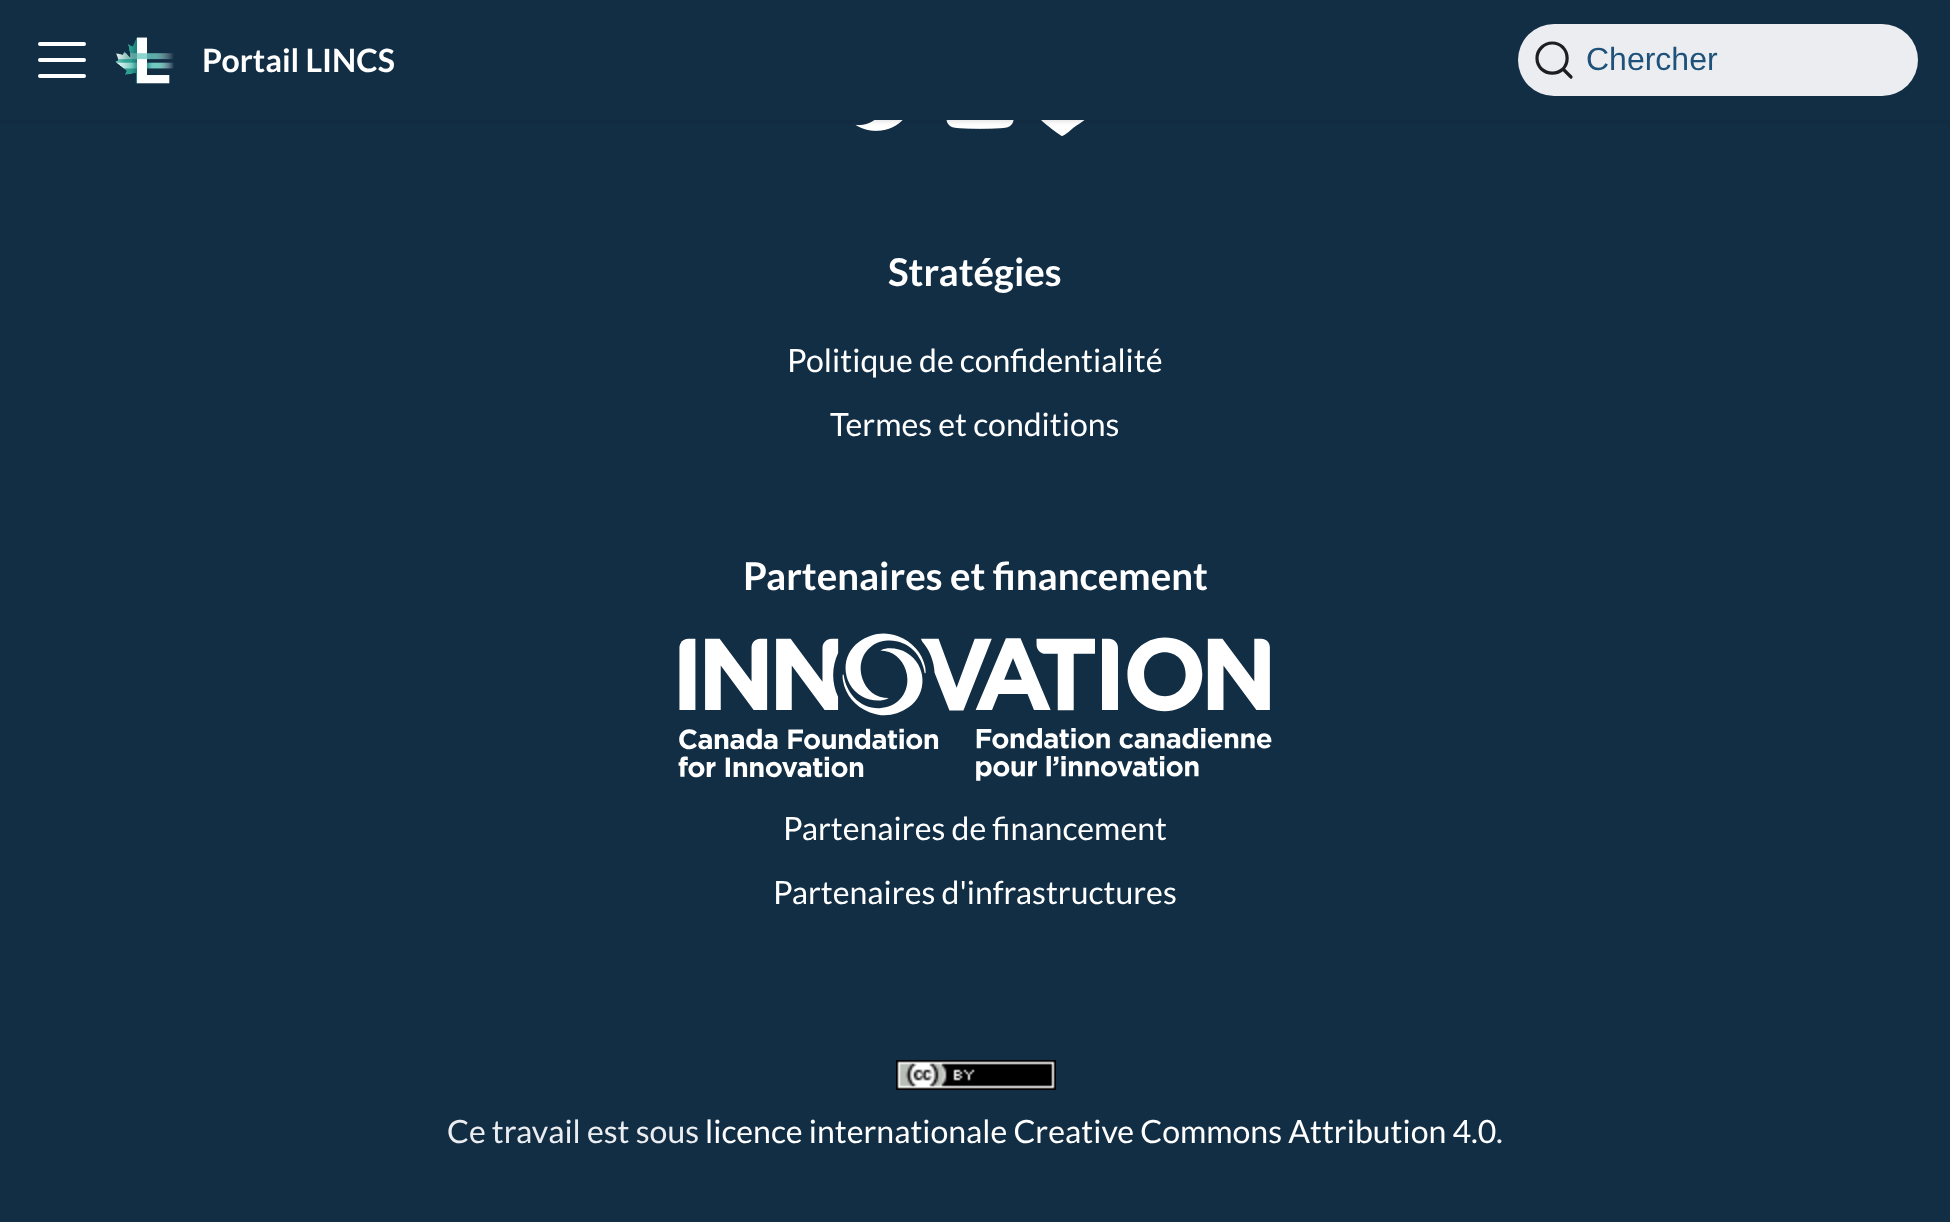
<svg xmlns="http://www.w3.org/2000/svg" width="1950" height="1222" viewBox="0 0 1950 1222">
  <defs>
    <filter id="blur1" x="-50%" y="-200%" width="200%" height="500%"><feGaussianBlur stdDeviation="2"/></filter>
  </defs>
  <rect width="100%" height="100%" fill="#122e45"/>
  <image x="855" y="120" width="48" height="11" href="img2.png"/>
  <image x="946" y="120" width="68" height="9" href="img3.png"/>
  <path d="M1093 98L1087 82C1087 81 1086 74 1083 73C1079 72 1079 80 1078 81L1074 93H1050L1046 81C1044 74 1042 68 1038 79L1030 101C1028 110 1034 115 1041 120C1043 122 1059 135 1062 136C1064 136 1071 130 1073 128C1083 121 1099 113 1093 98Z" fill="#ffffff"/>
  <rect x="0" y="2" width="1950" height="120" fill="#000000" fill-opacity="0.1" filter="url(#blur1)"/>
  <rect x="0" y="1" width="1950" height="119" fill="#122e45"/>
  <path d="M40 44H84M40 60H84M40 76H84" fill="none" stroke="#ffffff" stroke-width="4" stroke-linecap="round"/>
  <image x="115" y="37" width="59" height="47" href="img1.png"/>
  <text x="202" y="72" font-family="Lato" font-size="32" font-weight="bold" fill="#ffffff">Portail LINCS</text>
  <rect x="1518" y="24" width="400" height="72" rx="36" fill="#ebedf0"/>
  <path d="M1563 69L1571 77L1563 69C1557 74.5 1547.5 74.5 1541.5 69C1535.5 63 1535.5 53.5 1541.5 47.5C1547.5 41.5 1557 41.5 1563 47.5C1568.5 53.5 1568.5 63 1563 69Z" fill="none" stroke="#1c1e21" stroke-width="3.2" stroke-linecap="round" stroke-linejoin="round"/>
  <text x="1586" y="70" font-family="Liberation Sans" font-size="32" fill="#1f527a">Chercher</text>
  <text x="888" y="286" font-family="Lato" font-size="38.4" font-weight="bold" fill="#ffffff">Stratégies</text>
  <text x="787" y="372" font-family="Lato" font-size="32" fill="#ffffff">Politique de confidentialité</text>
  <text x="830" y="436" font-family="Lato" font-size="32" fill="#ffffff">Termes et conditions</text>
  <text x="743" y="590" font-family="Lato" font-size="38.4" font-weight="bold" fill="#ffffff">Partenaires et financement</text>
  <image x="678" y="633" width="594" height="148" href="img4.png"/>
  <text x="783" y="840" font-family="Lato" font-size="32" fill="#ffffff">Partenaires de financement</text>
  <text x="773" y="904" font-family="Lato" font-size="32" fill="#ffffff">Partenaires d'infrastructures</text>
  <image x="896" y="1060" width="160" height="30" href="img5.png"/>
  <text x="447" y="1143" font-family="Lato" font-size="32" fill="#ebedf0">Ce travail est sous</text>
  <text x="705" y="1143" font-family="Lato" font-size="32" fill="#ffffff">licence internationale Creative Commons Attribution 4.0</text>
  <text x="1496" y="1143" font-family="Lato" font-size="32" fill="#ebedf0">.</text>
</svg>
